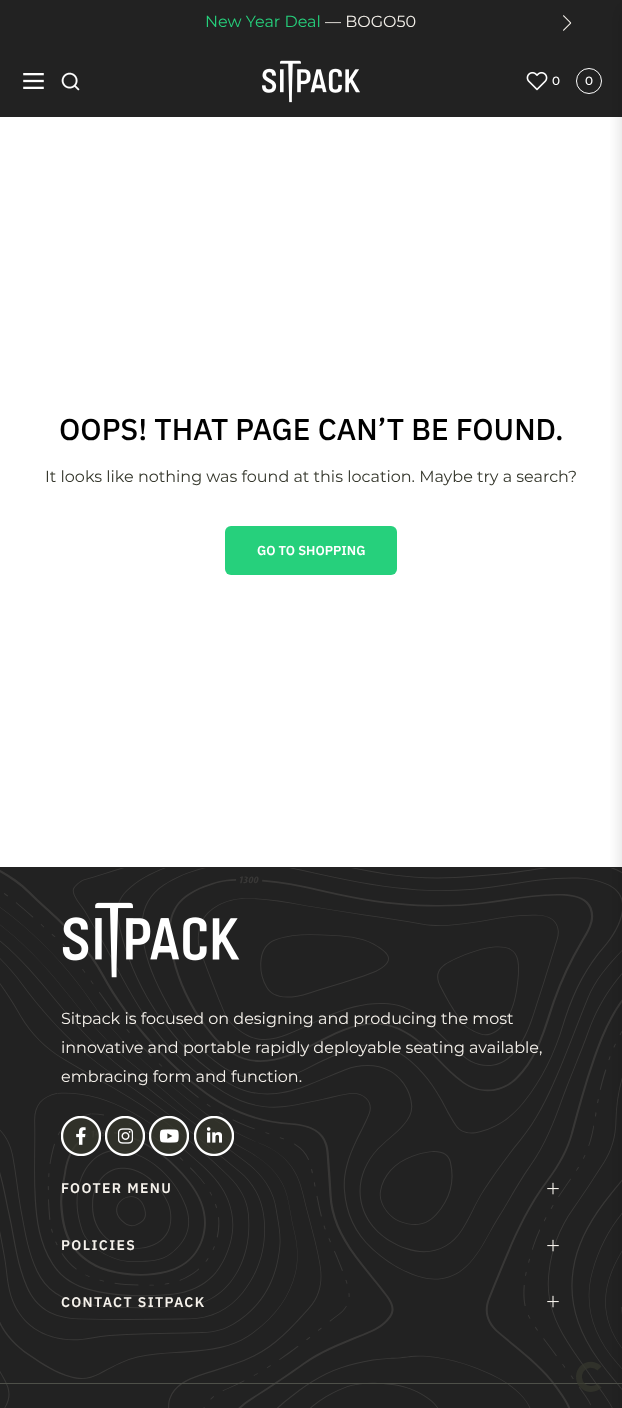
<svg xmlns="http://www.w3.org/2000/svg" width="622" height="1408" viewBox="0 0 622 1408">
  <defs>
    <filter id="blur1" x="-50%" y="-200%" width="200%" height="500%"><feGaussianBlur stdDeviation="0.5"/></filter>
    <filter id="blur2" x="-50%" y="-200%" width="200%" height="500%"><feGaussianBlur stdDeviation="8"/></filter>
  </defs>
  <rect width="100%" height="100%" fill="#ffffff"/>
  <rect x="0" y="0" width="622" height="45" fill="#222222"/>
  <text x="205" y="27" font-family="Montserrat" font-size="16" fill="#26d07c">New Year Deal</text>
  <text x="325" y="27" font-family="Montserrat" font-size="16" fill="#f5f1eb">— BOGO50</text>
  <image x="563" y="15" width="9" height="16" href="img1.png"/>
  <rect x="0" y="45" width="622" height="72" fill="#000000" fill-opacity="0.3" filter="url(#blur1)"/>
  <rect x="0" y="45" width="622" height="72" fill="#222222"/>
  <image x="23" y="73" width="21" height="16" href="img2.png"/>
  <image x="61" y="72" width="19" height="19" href="img3.png"/>
  <image x="262" y="60" width="98" height="43" href="img4.png"/>
  <image x="526" y="71" width="22" height="20" href="img5.png"/>
  <text x="552" y="85" font-family="Montserrat" font-size="12" font-weight="500" fill="#ffffff">0</text>
  <circle cx="589" cy="81" r="12.5" fill="none" stroke="#ffffff"/>
  <text x="585" y="85" font-family="Montserrat" font-size="12" font-weight="500" fill="#ffffff">0</text>
  <rect x="0" y="867" width="622" height="541" fill="#222222"/>
  <image x="0" y="868" width="622" height="540" href="img6.png"/>
  <rect x="0" y="1383" width="622" height="1" fill="#4e5049"/>
  <path d="M599.5 1385.5C597.5 1387.5 594 1389 591 1389C576.5 1389 574.5 1368 588.5 1365C592.5 1364.5 596.5 1365.5 599.5 1368.5" fill="none" stroke="#36382d" stroke-opacity="0.7" stroke-width="6"/>
  <rect x="622" y="8" width="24" height="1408" fill="#000000" fill-opacity="0.15" filter="url(#blur2)"/>
  <text x="59" y="440" font-family="IBM Plex Sans" font-size="30" font-weight="500" fill="#000000">OOPS! THAT PAGE CAN’T BE FOUND.</text>
  <text x="45" y="482" font-family="Montserrat" font-size="16" fill="#36382d">It looks like nothing was found at this location. Maybe try a search?</text>
  <rect x="225" y="526" width="172" height="49" rx="6" fill="#26d07c"/>
  <text x="257" y="555" font-family="IBM Plex Sans" font-size="13" font-weight="600" fill="#ffffff">GO TO SHOPPING</text>
  <image x="62" y="902" width="178" height="76" href="img7.png"/>
  <text x="61" y="1024" font-family="Montserrat" font-size="16" fill="#f5f1eb">Sitpack is focused on designing and producing the most</text>
  <text x="61" y="1053" font-family="Montserrat" font-size="16" fill="#f5f1eb">innovative and portable rapidly deployable seating available,</text>
  <text x="61" y="1082" font-family="Montserrat" font-size="16" fill="#f5f1eb">embracing form and function.</text>
  <image x="61" y="1116" width="40" height="40" href="img8.png"/>
  <image x="105" y="1116" width="40" height="40" href="img9.png"/>
  <image x="149" y="1116" width="40" height="40" href="img10.png"/>
  <image x="194" y="1116" width="40" height="40" href="img11.png"/>
  <text x="61" y="1193" font-family="IBM Plex Sans" font-size="14" font-weight="600" letter-spacing="1.4" fill="#f5f1eb">FOOTER MENU</text>
  <image x="547" y="1182" width="12" height="13" href="img12.png"/>
  <text x="61" y="1250" font-family="IBM Plex Sans" font-size="14" font-weight="600" letter-spacing="1.4" fill="#f5f1eb">POLICIES</text>
  <image x="547" y="1239" width="12" height="13" href="img13.png"/>
  <text x="61" y="1307" font-family="IBM Plex Sans" font-size="14" font-weight="600" letter-spacing="1.4" fill="#f5f1eb">CONTACT SITPACK</text>
  <image x="547" y="1295" width="12" height="13" href="img14.png"/>
</svg>
